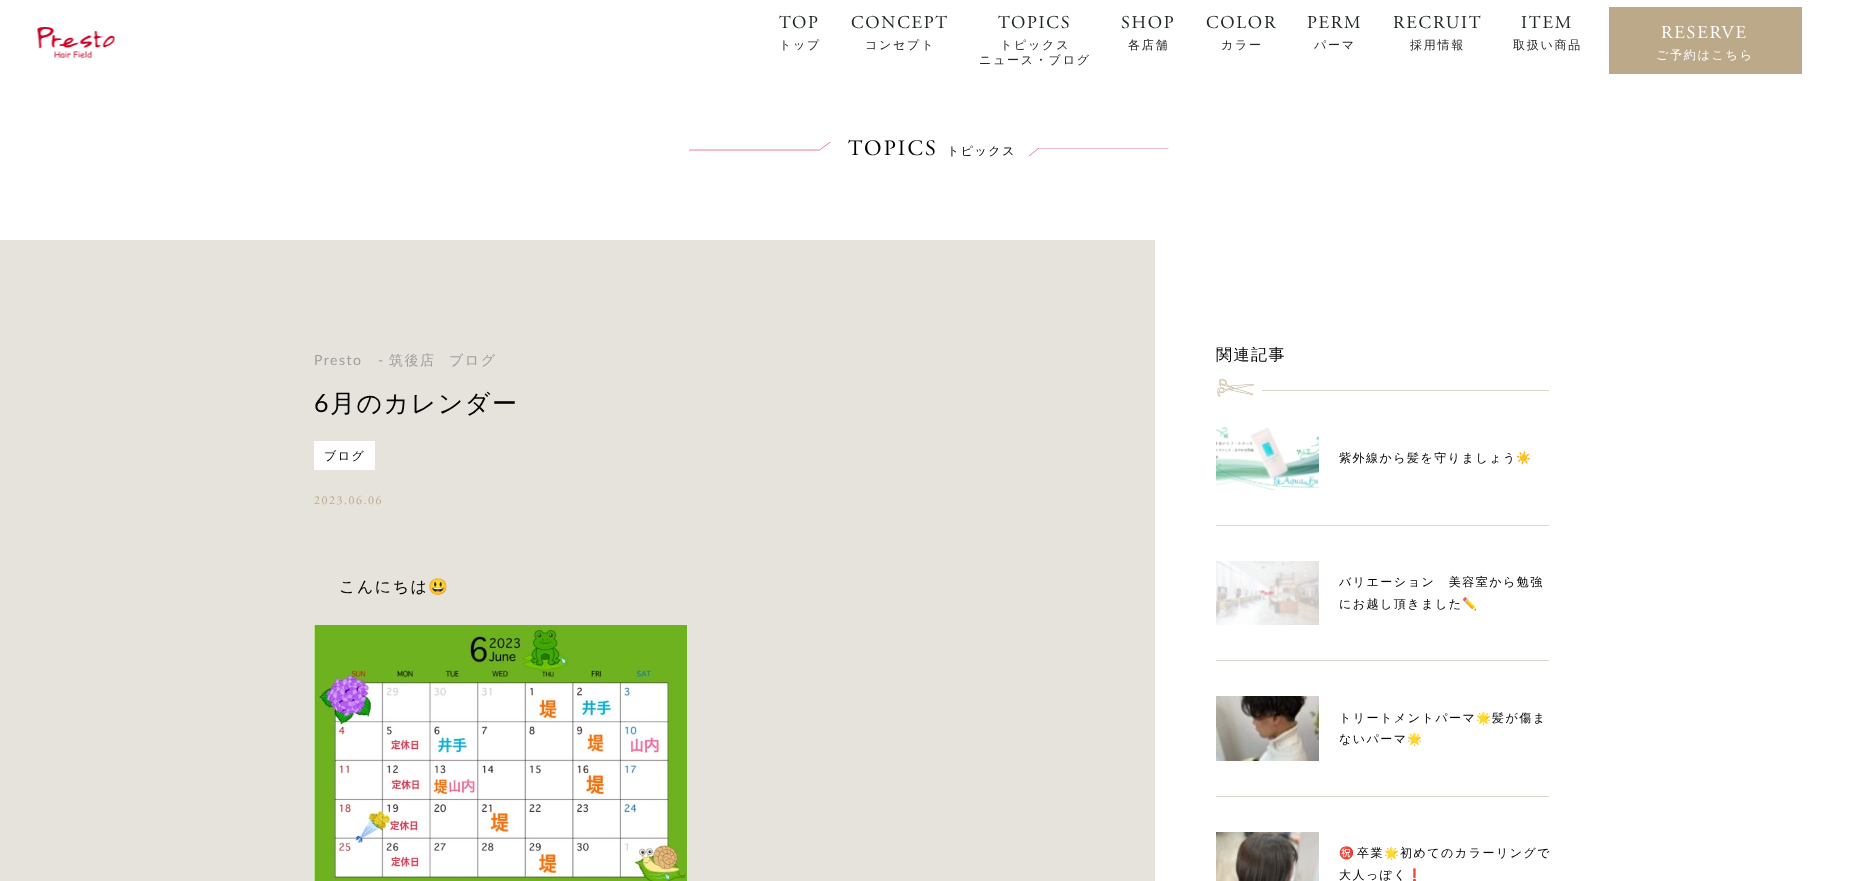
<svg xmlns="http://www.w3.org/2000/svg" width="1863" height="881" viewBox="0 0 1863 881">
  <defs>
    <clipPath id="clip1"><rect x="689" y="142" width="145" height="9"/></clipPath>
    <clipPath id="clip2"><rect x="1026" y="148" width="145" height="8"/></clipPath>
  </defs>
  <rect width="100%" height="100%" fill="#ffffff"/>
  <image x="37" y="27" width="78" height="31" href="img1.png"/>
  <text x="779" y="28" font-family="Adobe Garamond" font-size="18" letter-spacing="1.75" fill="#202625">TOP</text>
  <text x="779" y="49" font-family="WenQuanYi Zen Hei" font-size="12" font-weight="500" letter-spacing="1.75" fill="#202625">トップ</text>
  <text x="851" y="28" font-family="Adobe Garamond" font-size="18" letter-spacing="1.75" fill="#202625">CONCEPT</text>
  <text x="865" y="49" font-family="WenQuanYi Zen Hei" font-size="12" font-weight="500" letter-spacing="1.75" fill="#202625">コンセプト</text>
  <text x="998" y="28" font-family="Adobe Garamond" font-size="18" letter-spacing="1.75" fill="#202625">TOPICS</text>
  <text x="1000" y="49" font-family="WenQuanYi Zen Hei" font-size="12" font-weight="500" letter-spacing="1.75" fill="#202625">トピックス</text>
  <text x="979" y="64" font-family="WenQuanYi Zen Hei" font-size="12" font-weight="500" letter-spacing="1.75" fill="#202625">ニュース・ブログ</text>
  <text x="1121" y="28" font-family="Adobe Garamond" font-size="18" letter-spacing="1.75" fill="#202625">SHOP</text>
  <text x="1128" y="49" font-family="WenQuanYi Zen Hei" font-size="12" font-weight="500" letter-spacing="1.75" fill="#202625">各店舗</text>
  <text x="1206" y="28" font-family="Adobe Garamond" font-size="18" letter-spacing="1.75" fill="#202625">COLOR</text>
  <text x="1221" y="49" font-family="WenQuanYi Zen Hei" font-size="12" font-weight="500" letter-spacing="1.75" fill="#202625">カラー</text>
  <text x="1307" y="28" font-family="Adobe Garamond" font-size="18" letter-spacing="1.75" fill="#202625">PERM</text>
  <text x="1314" y="49" font-family="WenQuanYi Zen Hei" font-size="12" font-weight="500" letter-spacing="1.75" fill="#202625">パーマ</text>
  <text x="1393" y="28" font-family="Adobe Garamond" font-size="18" letter-spacing="1.75" fill="#202625">RECRUIT</text>
  <text x="1410" y="49" font-family="WenQuanYi Zen Hei" font-size="12" font-weight="500" letter-spacing="1.75" fill="#202625">採用情報</text>
  <text x="1521" y="28" font-family="Adobe Garamond" font-size="18" letter-spacing="1.75" fill="#202625">ITEM</text>
  <text x="1513" y="49" font-family="WenQuanYi Zen Hei" font-size="12" font-weight="500" letter-spacing="1.75" fill="#202625">取扱い商品</text>
  <rect x="1609" y="7" width="193" height="67" fill="#bca989"/>
  <text x="1661" y="38" font-family="Adobe Garamond" font-size="18" letter-spacing="1.75" fill="#ffffff">RESERVE</text>
  <text x="1656" y="59" font-family="WenQuanYi Zen Hei" font-size="12" font-weight="500" letter-spacing="1.75" fill="#ffffff">ご予約はこちら</text>
  <g clip-path="url(#clip1)">
    <path d="M674 150H819.5L831 141.5" fill="none" stroke="#cf0025" stroke-width="0.5"/>
  </g>
  <text x="848" y="155" font-family="Adobe Garamond" font-size="22" letter-spacing="2.25" fill="#000000">TOPICS</text>
  <text x="947" y="155" font-family="WenQuanYi Zen Hei" font-size="12" font-weight="500" letter-spacing="1.5" fill="#000000">トピックス</text>
  <g clip-path="url(#clip2)">
    <path d="M1168.5 148H1039L1029 156" fill="none" stroke="#cf0025" stroke-width="0.5"/>
  </g>
  <rect x="0" y="240" width="1155" height="641" fill="#e6e3dd"/>
  <text x="314" y="365" font-family="Lato" font-size="14" letter-spacing="1.5" fill="#9e9e9e">Presto</text>
  <text x="378" y="365" font-family="Lato" font-size="14" letter-spacing="1.5" fill="#9e9e9e">-</text>
  <text x="389" y="365" font-family="WenQuanYi Zen Hei" font-size="14" font-weight="500" letter-spacing="1.5" fill="#9e9e9e">筑後店</text>
  <text x="449" y="365" font-family="WenQuanYi Zen Hei" font-size="14" font-weight="500" letter-spacing="1.5" fill="#9e9e9e">ブログ</text>
  <text x="314" y="412" font-family="Lato" font-size="25" letter-spacing="1.5" fill="#000000">6</text>
  <text x="330" y="412" font-family="WenQuanYi Zen Hei" font-size="25" font-weight="500" letter-spacing="1.5" fill="#000000">月のカレンダー</text>
  <rect x="314" y="441" width="61" height="29" fill="#ffffff"/>
  <text x="324" y="460" font-family="WenQuanYi Zen Hei" font-size="12" font-weight="500" letter-spacing="1.5" fill="#000000">ブログ</text>
  <text x="314" y="504" font-family="Adobe Garamond" font-size="12" letter-spacing="1.5" fill="#bca989">2023.06.06</text>
  <text x="339" y="592" font-family="WenQuanYi Zen Hei" font-size="16" font-weight="500" letter-spacing="1.5" fill="#000000">こんにちは</text>
  <text x="428" y="592" font-family="Noto Color Emoji" font-size="16" letter-spacing="1.5" fill="#000000">😃</text>
  <image x="314" y="625" width="373" height="256" href="img2.png"/>
  <text x="1216" y="360" font-family="WenQuanYi Zen Hei" font-size="16" font-weight="500" letter-spacing="1.5" fill="#000000">関連記事</text>
  <image x="1217" y="378" width="37" height="19" href="img3.png"/>
  <rect x="1262" y="390" width="287" height="1" fill="#dad6cd"/>
  <rect x="1216" y="525" width="333" height="1" fill="#dad6cd"/>
  <image x="1216" y="427" width="103" height="63" href="img4.png"/>
  <text x="1339" y="462" font-family="WenQuanYi Zen Hei" font-size="12" font-weight="500" letter-spacing="1.5" fill="#000000">紫外線から髪を守りましょう</text>
  <text x="1516" y="462" font-family="Noto Color Emoji" font-size="12" letter-spacing="1.5" fill="#000000">☀️</text>
  <rect x="1216" y="660" width="333" height="1" fill="#dad6cd"/>
  <image x="1216" y="561" width="103" height="64" href="img5.png"/>
  <text x="1339" y="586" font-family="WenQuanYi Zen Hei" font-size="12" font-weight="500" letter-spacing="1.5" fill="#000000">バリエーション　美容室から勉強</text>
  <text x="1339" y="608" font-family="WenQuanYi Zen Hei" font-size="12" font-weight="500" letter-spacing="1.5" fill="#000000">にお越し頂きました</text>
  <text x="1462" y="608" font-family="Noto Color Emoji" font-size="12" letter-spacing="1.5" fill="#000000">✏️</text>
  <rect x="1216" y="796" width="333" height="1" fill="#dad6cd"/>
  <image x="1216" y="696" width="103" height="65" href="img6.png"/>
  <text x="1339" y="722" font-family="WenQuanYi Zen Hei" font-size="12" font-weight="500" letter-spacing="1.5" fill="#000000">トリートメントパーマ</text>
  <text x="1476" y="722" font-family="Noto Color Emoji" font-size="12" letter-spacing="1.5" fill="#000000">🌟</text>
  <text x="1492" y="722" font-family="WenQuanYi Zen Hei" font-size="12" font-weight="500" letter-spacing="1.5" fill="#000000">髪が傷ま</text>
  <text x="1339" y="743" font-family="WenQuanYi Zen Hei" font-size="12" font-weight="500" letter-spacing="1.5" fill="#000000">ないパーマ</text>
  <text x="1407" y="743" font-family="Noto Color Emoji" font-size="12" letter-spacing="1.5" fill="#000000">🌟</text>
  <image x="1216" y="832" width="103" height="49" href="img7.png"/>
  <text x="1339" y="857" font-family="Noto Color Emoji" font-size="12" letter-spacing="1.5" fill="#000000">㊗️</text>
  <text x="1357" y="857" font-family="WenQuanYi Zen Hei" font-size="12" font-weight="500" letter-spacing="1.5" fill="#000000">卒業</text>
  <text x="1384" y="857" font-family="Noto Color Emoji" font-size="12" letter-spacing="1.5" fill="#000000">🌟</text>
  <text x="1400" y="857" font-family="WenQuanYi Zen Hei" font-size="12" font-weight="500" letter-spacing="1.5" fill="#000000">初めてのカラーリングで</text>
  <text x="1339" y="879" font-family="WenQuanYi Zen Hei" font-size="12" font-weight="500" letter-spacing="1.5" fill="#000000">大人っぽく</text>
  <text x="1407" y="879" font-family="Noto Color Emoji" font-size="12" letter-spacing="1.5" fill="#000000">❗️</text>
</svg>
